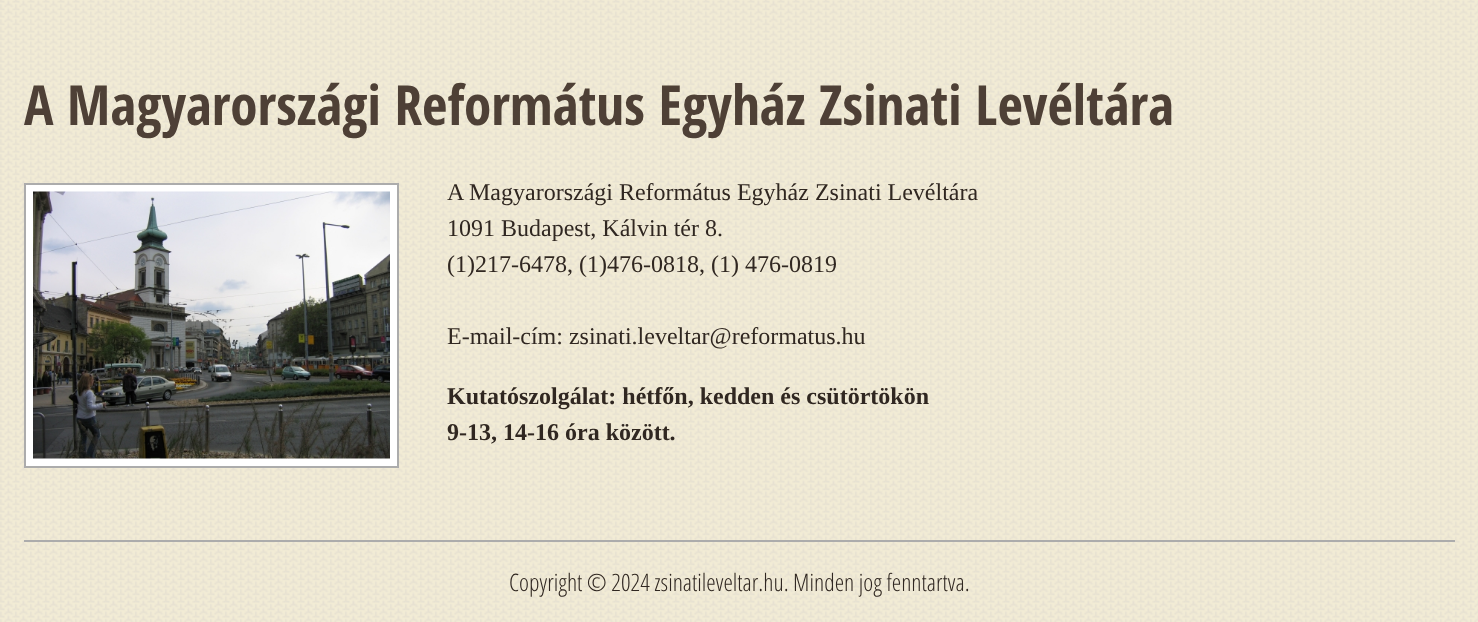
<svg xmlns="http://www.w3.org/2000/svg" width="1478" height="622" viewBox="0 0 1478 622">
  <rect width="100%" height="100%" fill="#ffffff"/>
  <image x="0" y="0" width="1478" height="622" href="img1.png"/>
  <text x="24" y="125" font-family="Open Sans Condensed" font-size="55.2" font-weight="bold" fill="#4e4036">A Magyarországi Református Egyház Zsinati Levéltára</text>
  <rect x="25" y="184" width="373" height="283" fill="#ffffff" stroke="#acacac" stroke-width="2"/>
  <image x="33" y="191" width="357" height="268" href="img2.png"/>
  <text x="447" y="200" font-family="Liberation Serif" font-size="24" fill="#302721">A Magyarországi Református Egyház Zsinati Levéltára</text>
  <text x="447" y="236" font-family="Liberation Serif" font-size="24" fill="#302721">1091 Budapest, Kálvin tér 8.</text>
  <text x="447" y="272" font-family="Liberation Serif" font-size="24" fill="#302721">(1)217-6478, (1)476-0818, (1) 476-0819</text>
  <text x="447" y="344" font-family="Liberation Serif" font-size="24" fill="#302721">E-mail-cím: zsinati.leveltar@reformatus.hu</text>
  <text x="447" y="404" font-family="Liberation Serif" font-size="24" font-weight="bold" fill="#302721">Kutatószolgálat: hétfőn, kedden és csütörtökön</text>
  <text x="447" y="440" font-family="Liberation Serif" font-size="24" font-weight="bold" fill="#302721">9-13, 14-16 óra között.</text>
  <rect x="24" y="540" width="1431" height="2" fill="#acacac"/>
  <text x="509" y="591" font-family="Open Sans Condensed" font-size="24" font-weight="300" fill="#302721">Copyright © 2024 zsinatileveltar.hu. Minden jog fenntartva.</text>
</svg>
